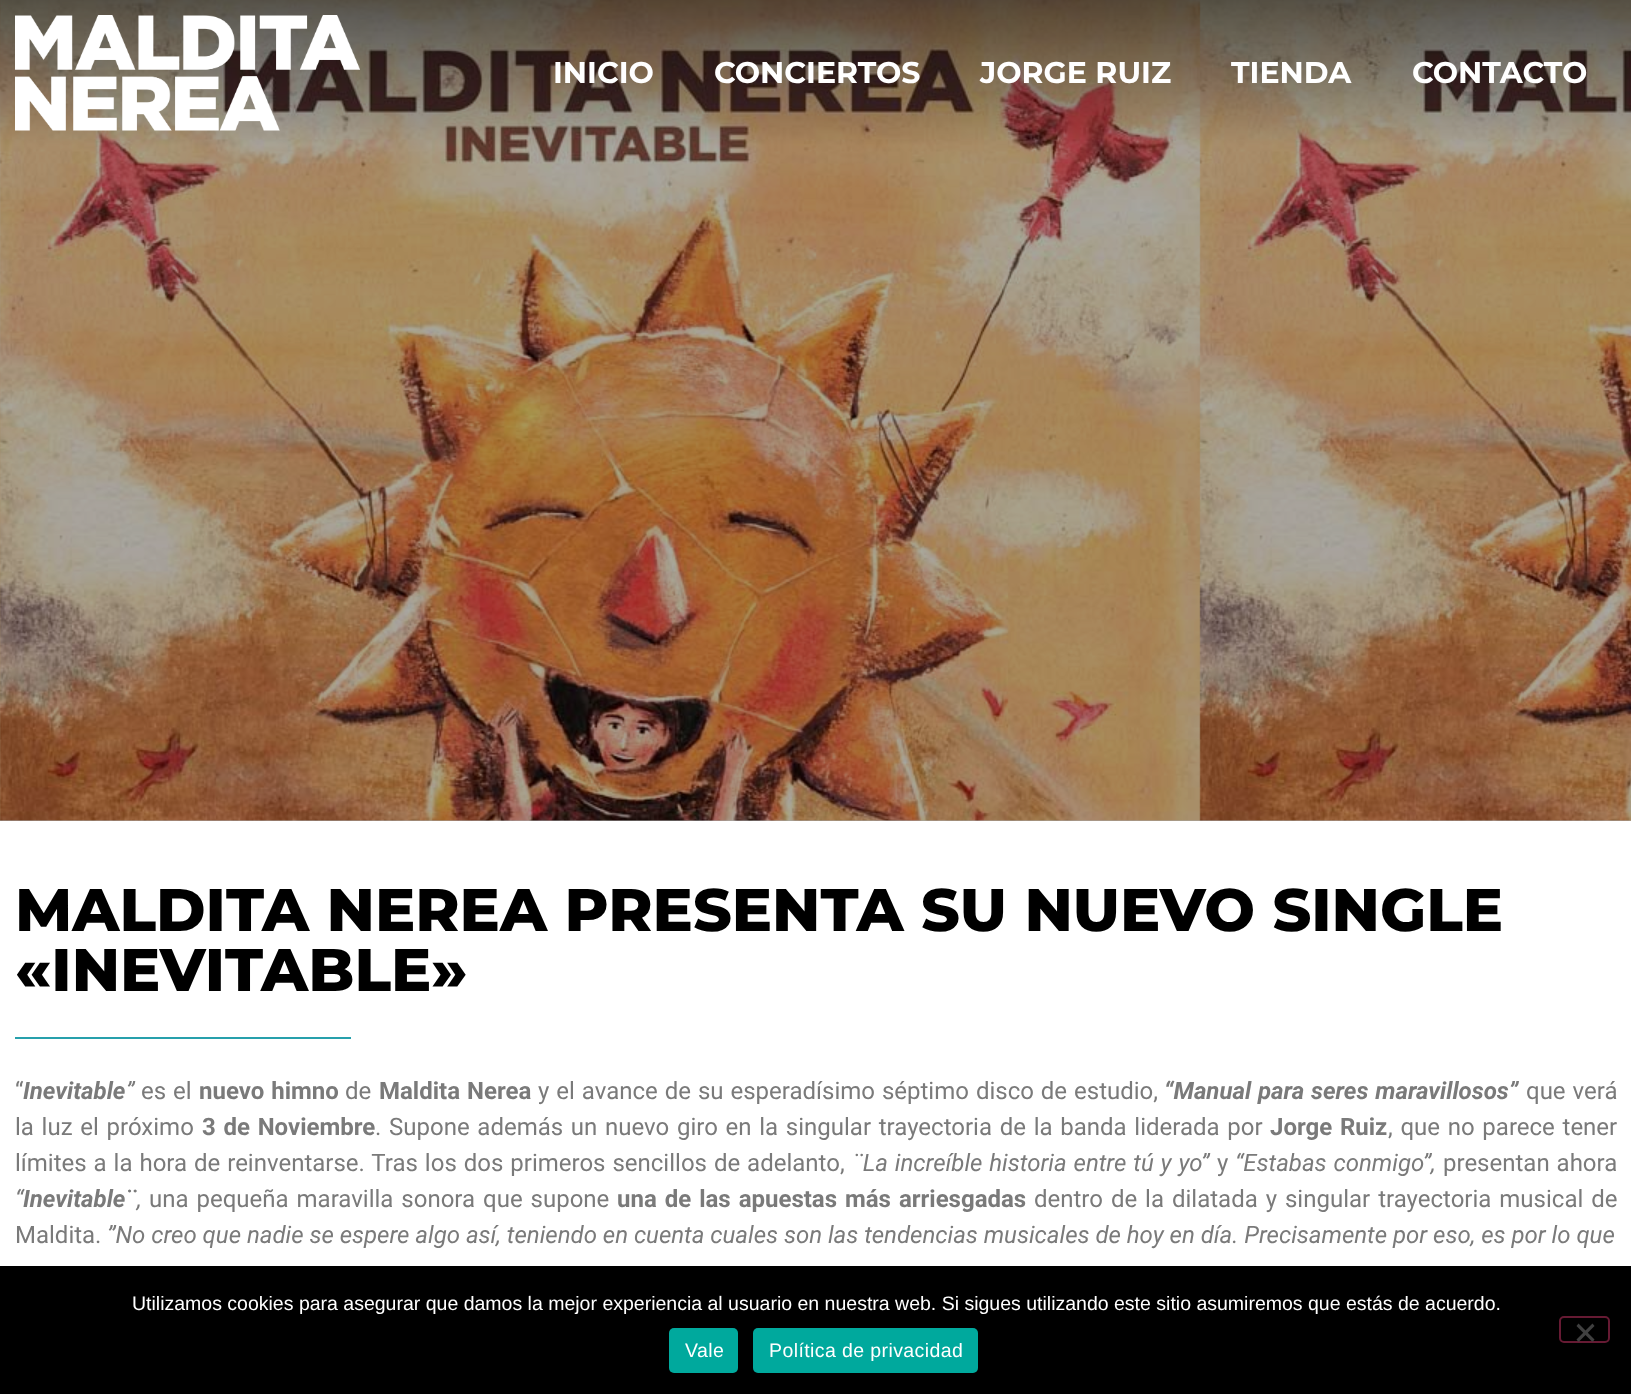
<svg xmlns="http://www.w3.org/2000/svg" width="1631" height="1394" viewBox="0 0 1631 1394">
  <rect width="100%" height="100%" fill="#ffffff"/>
  <rect x="0" y="820" width="1631" height="1" fill="#a8a8a8"/>
  <image x="0" y="0" width="1631" height="821" href="img2.png"/>
  <image x="15" y="15" width="345" height="116" href="img1.png"/>
  <text x="553" y="83" font-family="Montserrat" font-size="30" font-weight="bold" fill="#ffffff">INICIO</text>
  <text x="714" y="83" font-family="Montserrat" font-size="30" font-weight="bold" fill="#ffffff">CONCIERTOS</text>
  <text x="980" y="83" font-family="Montserrat" font-size="30" font-weight="bold" fill="#ffffff">JORGE RUIZ</text>
  <text x="1231" y="83" font-family="Montserrat" font-size="30" font-weight="bold" fill="#ffffff">TIENDA</text>
  <text x="1412" y="83" font-family="Montserrat" font-size="30" font-weight="bold" fill="#ffffff">CONTACTO</text>
  <text x="15" y="931" font-family="Montserrat" font-size="60" font-weight="800" fill="#000000">MALDITA NEREA PRESENTA SU NUEVO SINGLE</text>
  <text x="15" y="991" font-family="Montserrat" font-size="60" font-weight="800" fill="#000000">«INEVITABLE»</text>
  <rect x="15" y="1037" width="336" height="2" fill="#26a0ac"/>
  <text x="15" y="1099" font-family="Roboto" font-size="24" fill="#7a7a7a">“</text>
  <text x="23" y="1099" font-family="Roboto" font-size="24" font-weight="bold" font-style="italic" fill="#7a7a7a">Inevitable</text>
  <text x="126" y="1099" font-family="Roboto" font-size="24" font-style="italic" fill="#7a7a7a">”</text>
  <text x="141" y="1099" word-spacing="1" font-family="Roboto" font-size="24" fill="#7a7a7a">es el</text>
  <text x="199" y="1099" word-spacing="1" font-family="Roboto" font-size="24" font-weight="bold" fill="#7a7a7a">nuevo himno</text>
  <text x="345" y="1099" font-family="Roboto" font-size="24" fill="#7a7a7a">de</text>
  <text x="379" y="1099" word-spacing="1" font-family="Roboto" font-size="24" font-weight="bold" fill="#7a7a7a">Maldita Nerea</text>
  <text x="538" y="1099" word-spacing="1" font-family="Roboto" font-size="24" fill="#7a7a7a">y el avance de su esperadísimo séptimo disco de estudio,</text>
  <text x="1164" y="1099" word-spacing="1" font-family="Roboto" font-size="24" font-weight="bold" font-style="italic" fill="#7a7a7a">“Manual para seres maravillosos”</text>
  <text x="1526" y="1099" word-spacing="1" font-family="Roboto" font-size="24" fill="#7a7a7a">que verá</text>
  <text x="15" y="1135" word-spacing="1.75" font-family="Roboto" font-size="24" fill="#7a7a7a">la luz el próximo</text>
  <text x="202" y="1135" word-spacing="1.75" font-family="Roboto" font-size="24" font-weight="bold" fill="#7a7a7a">3 de Noviembre</text>
  <text x="375" y="1135" word-spacing="1.75" font-family="Roboto" font-size="24" fill="#7a7a7a">. Supone además un nuevo giro en la singular trayectoria de la banda liderada por</text>
  <text x="1270" y="1135" word-spacing="1.75" font-family="Roboto" font-size="24" font-weight="bold" fill="#7a7a7a">Jorge Ruiz</text>
  <text x="1388" y="1135" word-spacing="1.75" font-family="Roboto" font-size="24" fill="#7a7a7a">, que no parece tener</text>
  <text x="15" y="1171" word-spacing="1" font-family="Roboto" font-size="24" fill="#7a7a7a">límites a la hora de reinventarse. Tras los dos primeros sencillos de adelanto,</text>
  <text x="853" y="1171" word-spacing="1" font-family="Roboto" font-size="24" font-style="italic" fill="#7a7a7a">¨La increíble historia entre tú y yo”</text>
  <text x="1217" y="1171" font-family="Roboto" font-size="24" fill="#7a7a7a">y</text>
  <text x="1235" y="1171" word-spacing="1" font-family="Roboto" font-size="24" font-style="italic" fill="#7a7a7a">“Estabas conmigo”,</text>
  <text x="1443" y="1171" word-spacing="1" font-family="Roboto" font-size="24" fill="#7a7a7a">presentan ahora</text>
  <text x="15" y="1207" font-family="Roboto" font-size="24" font-style="italic" fill="#7a7a7a">“</text>
  <text x="23" y="1207" font-family="Roboto" font-size="24" font-weight="bold" font-style="italic" fill="#7a7a7a">Inevitable¨</text>
  <text x="137" y="1207" font-family="Roboto" font-size="24" font-style="italic" fill="#7a7a7a">,</text>
  <text x="149" y="1207" word-spacing="2" font-family="Roboto" font-size="24" fill="#7a7a7a">una pequeña maravilla sonora que supone</text>
  <text x="617" y="1207" word-spacing="2" font-family="Roboto" font-size="24" font-weight="bold" fill="#7a7a7a">una de las apuestas más arriesgadas</text>
  <text x="1034" y="1207" word-spacing="2" font-family="Roboto" font-size="24" fill="#7a7a7a">dentro de la dilatada y singular trayectoria musical de</text>
  <text x="15" y="1243" font-family="Roboto" font-size="24" fill="#7a7a7a">Maldita.</text>
  <text x="107" y="1243" font-family="Roboto" font-size="24" font-style="italic" fill="#7a7a7a">”No creo que nadie se espere algo así, teniendo en cuenta cuales son las tendencias musicales de hoy en día. Precisamente por eso, es por lo que</text>
  <rect x="0" y="1266" width="1631" height="128" fill="#000000"/>
  <text x="132" y="1310" font-family="Liberation Sans" font-size="19.5" fill="#ffffff">Utilizamos cookies para asegurar que damos la mejor experiencia al usuario en nuestra web. Si sigues utilizando este sitio asumiremos que estás de acuerdo.</text>
  <rect x="1560" y="1317" width="49" height="25" rx="4" fill="none" stroke="#661a33" stroke-width="2"/>
  <path d="M1592.5 1323.5L1594.5 1326L1578.5 1342L1576.5 1339.5Z" fill="#404040"/>
  <path d="M1576.5 1326L1578.5 1323.5L1594.5 1339.5L1592.5 1342Z" fill="#404040"/>
  <rect x="669" y="1328" width="69" height="45" rx="5" fill="#00a99d"/>
  <text x="685" y="1357" font-family="Liberation Sans" font-size="19.5" letter-spacing="0.4" fill="#ffffff">Vale</text>
  <rect x="753" y="1328" width="225" height="45" rx="5" fill="#00a99d"/>
  <text x="769" y="1357" font-family="Liberation Sans" font-size="19.5" letter-spacing="0.4" fill="#ffffff">Política de privacidad</text>
</svg>
